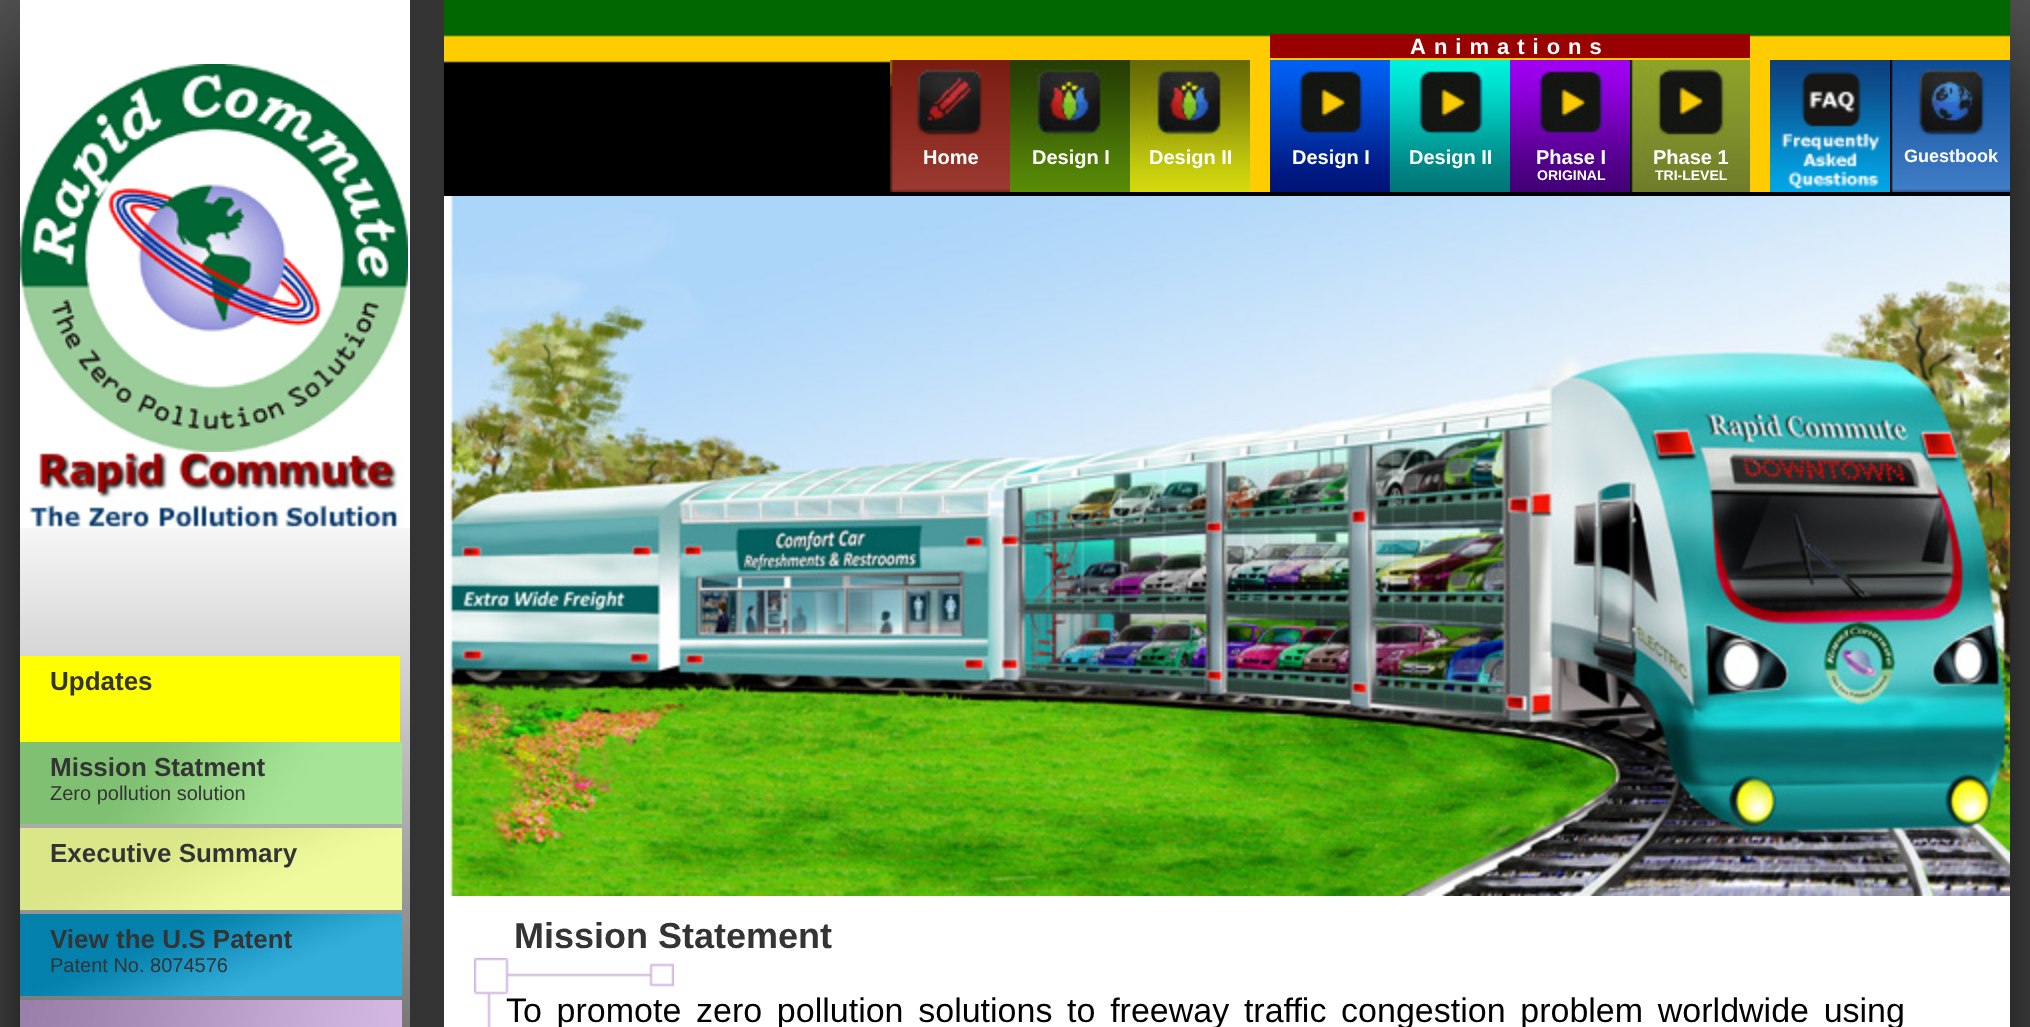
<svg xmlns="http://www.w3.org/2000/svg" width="2030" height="1027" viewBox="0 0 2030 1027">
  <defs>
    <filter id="blur1" x="-50%" y="-200%" width="200%" height="500%"><feGaussianBlur stdDeviation="63"/></filter>
  </defs>
  <rect width="100%" height="100%" fill="#555555"/>
  <rect x="20" y="50" width="1990" height="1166" fill="#000000" filter="url(#blur1)"/>
  <rect x="444" y="896" width="1566" height="131" fill="#ffffff"/>
  <rect x="410" y="0" width="34" height="1027" fill="#333333"/>
  <image x="20" y="0" width="390" height="1027" href="img1.png"/>
  <image x="20" y="64" width="388" height="388" href="img2.png"/>
  <image x="20" y="452" width="390" height="76" href="img3.png"/>
  <rect x="20" y="656" width="380" height="86" fill="#ffff00"/>
  <text x="50" y="690" font-family="Liberation Sans" font-size="26" font-weight="bold" fill="#333434">Updates</text>
  <image x="20" y="742" width="382" height="82" href="img4.png"/>
  <text x="50" y="776" font-family="Liberation Sans" font-size="26" font-weight="bold" fill="#333434">Mission Statment</text>
  <text x="50" y="800" font-family="Liberation Sans" font-size="20" fill="#333434">Zero pollution solution</text>
  <image x="20" y="828" width="382" height="82" href="img5.png"/>
  <text x="50" y="862" font-family="Liberation Sans" font-size="26" font-weight="bold" fill="#333434">Executive Summary</text>
  <image x="20" y="914" width="382" height="82" href="img6.png"/>
  <text x="50" y="948" font-family="Liberation Sans" font-size="26" font-weight="bold" fill="#333434">View the U.S Patent</text>
  <text x="50" y="972" font-family="Liberation Sans" font-size="20" fill="#333434">Patent No. 8074576</text>
  <image x="20" y="1000" width="382" height="27" href="img7.png"/>
  <rect x="444" y="63" width="1566" height="133" fill="#000000"/>
  <image x="444" y="0" width="1566" height="63" href="img8.png"/>
  <rect x="1270" y="34" width="480" height="24" fill="#990000"/>
  <text x="1410" y="54" font-family="Liberation Sans" font-size="22" font-weight="bold" letter-spacing="8" fill="#ffffff">Animations</text>
  <image x="890" y="60" width="120" height="132" href="img9.png"/>
  <text x="923" y="164" font-family="Liberation Sans" font-size="20" font-weight="bold" fill="#ffffff">Home</text>
  <image x="1010" y="60" width="120" height="132" href="img10.png"/>
  <text x="1032" y="164" font-family="Liberation Sans" font-size="20" font-weight="bold" fill="#ffffff">Design I</text>
  <image x="1130" y="60" width="120" height="132" href="img11.png"/>
  <text x="1149" y="164" font-family="Liberation Sans" font-size="20" font-weight="bold" fill="#ffffff">Design II</text>
  <rect x="1250" y="61" width="20" height="131" fill="#ffcc01"/>
  <image x="1270" y="60" width="120" height="132" href="img12.png"/>
  <text x="1292" y="164" font-family="Liberation Sans" font-size="20" font-weight="bold" fill="#ffffff">Design I</text>
  <image x="1390" y="60" width="120" height="132" href="img13.png"/>
  <text x="1409" y="164" font-family="Liberation Sans" font-size="20" font-weight="bold" fill="#ffffff">Design II</text>
  <image x="1510" y="60" width="120" height="132" href="img14.png"/>
  <text x="1536" y="164" font-family="Liberation Sans" font-size="20" font-weight="bold" fill="#ffffff">Phase I</text>
  <text x="1537" y="180" font-family="Liberation Sans" font-size="14" font-weight="bold" fill="#ffffff">ORIGINAL</text>
  <image x="1630" y="60" width="120" height="132" href="img15.png"/>
  <text x="1653" y="164" font-family="Liberation Sans" font-size="20" font-weight="bold" fill="#ffffff">Phase 1</text>
  <text x="1655" y="180" font-family="Liberation Sans" font-size="14" font-weight="bold" fill="#ffffff">TRI-LEVEL</text>
  <rect x="1750" y="61" width="20" height="131" fill="#ffcc01"/>
  <image x="1770" y="60" width="120" height="132" href="img16.png"/>
  <image x="1890" y="60" width="120" height="132" href="img17.png"/>
  <text x="1904" y="162" font-family="Liberation Sans" font-size="18" font-weight="bold" fill="#ffffff">Guestbook</text>
  <image x="444" y="196" width="1566" height="700" href="img18.png"/>
  <text x="514" y="948" font-family="Liberation Sans" font-size="36" font-weight="bold" fill="#333434">Mission Statement</text>
  <image x="474" y="958" width="200" height="69" href="img19.png"/>
  <text x="506" y="1022" word-spacing="5.25" font-family="Liberation Sans" font-size="34" fill="#000000">To promote zero pollution solutions to freeway traffic congestion problem worldwide using</text>
</svg>
